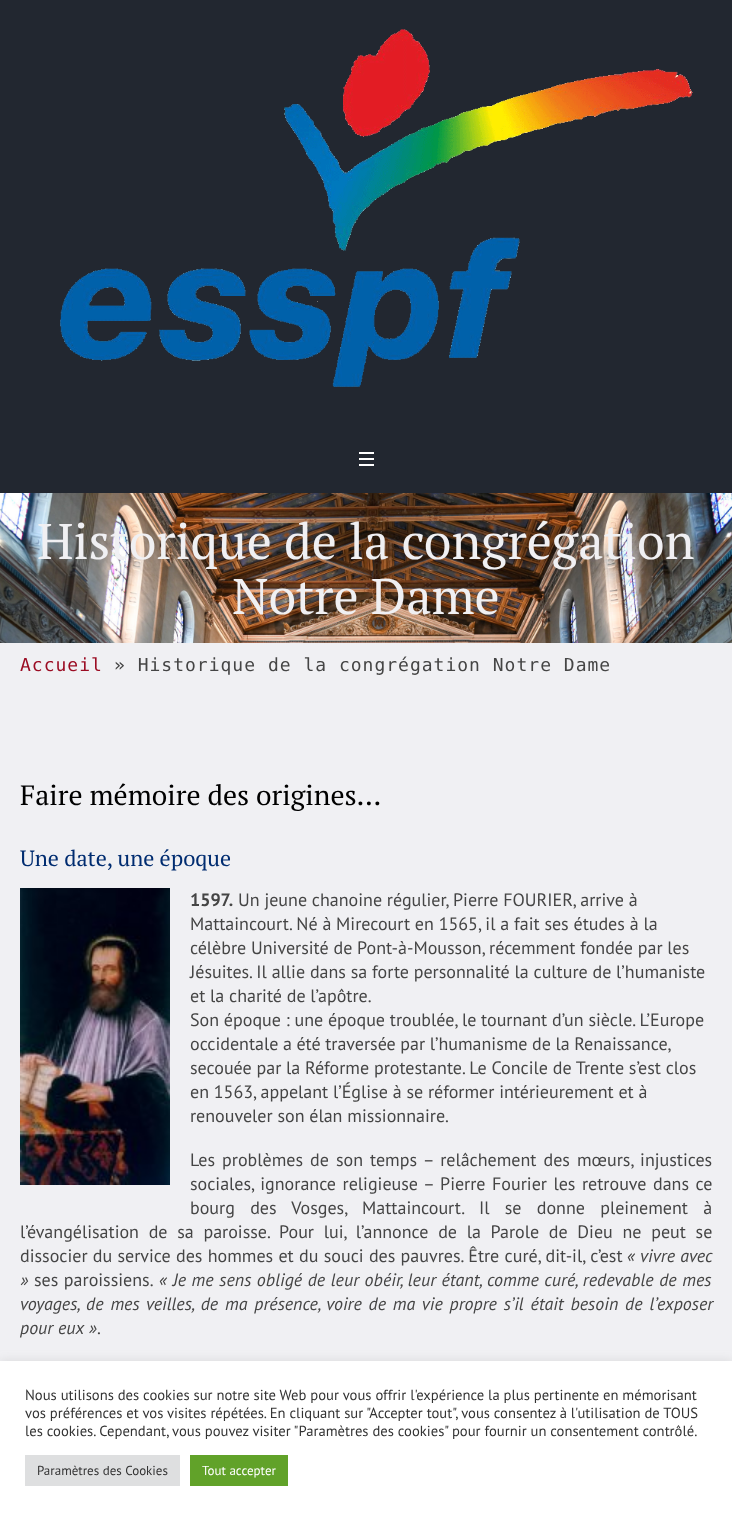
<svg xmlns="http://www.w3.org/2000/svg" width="732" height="1516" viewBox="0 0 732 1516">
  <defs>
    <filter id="blur1" x="-50%" y="-200%" width="200%" height="500%"><feGaussianBlur stdDeviation="5"/></filter>
  </defs>
  <rect width="100%" height="100%" fill="#f0f0f3"/>
  <rect x="0" y="0" width="732" height="493" fill="#222730"/>
  <image x="60" y="29" width="633" height="358" href="img1.png"/>
  <rect x="359" y="458" width="15" height="2" fill="#ffffff"/>
  <rect x="359" y="452" width="15" height="2" fill="#ffffff"/>
  <rect x="359" y="464" width="15" height="2" fill="#ffffff"/>
  <image x="0" y="493" width="732" height="150" href="img2.png"/>
  <text x="37" y="559" font-family="PT Serif" font-size="50" fill="#f0f0f3">Historique de la congrégation</text>
  <text x="232" y="614" font-family="PT Serif" font-size="50" fill="#f0f0f3">Notre Dame</text>
  <text x="20" y="671" font-family="DejaVu Sans Mono" font-size="18" letter-spacing="1" fill="#9b0c23">Accueil</text>
  <text x="114" y="671" font-family="DejaVu Sans Mono" font-size="18" letter-spacing="1" fill="#454545">» Historique de la congrégation Notre Dame</text>
  <text x="20" y="805" font-family="PT Serif" font-size="28" fill="#000000">Faire mémoire des origines…</text>
  <text x="20" y="866" font-family="PT Serif" font-size="22" fill="#002c70">Une date, une époque</text>
  <image x="20" y="888" width="150" height="297" href="img3.png"/>
  <text x="190" y="906" font-family="PT Sans" font-size="18" font-weight="bold" fill="#454545">1597.</text>
  <text x="238" y="906" font-family="PT Sans" font-size="18" fill="#454545">Un jeune chanoine régulier, Pierre FOURIER, arrive à</text>
  <text x="190" y="930" font-family="PT Sans" font-size="18" fill="#454545">Mattaincourt. Né à Mirecourt en 1565, il a fait ses études à la</text>
  <text x="190" y="954" font-family="PT Sans" font-size="18" fill="#454545">célèbre Université de Pont-à-Mousson, récemment fondée par les</text>
  <text x="190" y="978" font-family="PT Sans" font-size="18" fill="#454545">Jésuites. Il allie dans sa forte personnalité la culture de l’humaniste</text>
  <text x="190" y="1002" font-family="PT Sans" font-size="18" fill="#454545">et la charité de l’apôtre.</text>
  <text x="190" y="1026" font-family="PT Sans" font-size="18" fill="#454545">Son époque : une époque troublée, le tournant d’un siècle. L’Europe</text>
  <text x="190" y="1050" word-spacing="-0.25" font-family="PT Sans" font-size="18" fill="#454545">occidentale a été traversée par l’humanisme de la Renaissance,</text>
  <text x="190" y="1074" font-family="PT Sans" font-size="18" fill="#454545">secouée par la Réforme protestante. Le Concile de Trente s’est clos</text>
  <text x="190" y="1098" font-family="PT Sans" font-size="18" fill="#454545">en 1563, appelant l’Église à se réformer intérieurement et à</text>
  <text x="190" y="1122" font-family="PT Sans" font-size="18" fill="#454545">renouveler son élan missionnaire.</text>
  <text x="190" y="1166" word-spacing="2.25" font-family="PT Sans" font-size="18" fill="#454545">Les problèmes de son temps – relâchement des mœurs, injustices</text>
  <text x="190" y="1190" word-spacing="1.75" font-family="PT Sans" font-size="18" fill="#454545">sociales, ignorance religieuse – Pierre Fourier les retrouve dans ce</text>
  <text x="190" y="1214" word-spacing="10.5" font-family="PT Sans" font-size="18" fill="#454545">bourg des Vosges, Mattaincourt. Il se donne pleinement à</text>
  <text x="20" y="1238" word-spacing="4.9" font-family="PT Sans" font-size="18" fill="#454545">l’évangélisation de sa paroisse. Pour lui, l’annonce de la Parole de Dieu ne peut se</text>
  <text x="20" y="1262" word-spacing="0.5" font-family="PT Sans" font-size="18" fill="#454545">dissocier du service des hommes et du souci des pauvres. Être curé, dit-il, c’est</text>
  <text x="627" y="1262" word-spacing="0.5" font-family="PT Sans" font-size="18" font-style="italic" fill="#454545">« vivre avec</text>
  <text x="20" y="1286" font-family="PT Sans" font-size="18" font-style="italic" fill="#454545">»</text>
  <text x="34" y="1286" word-spacing="0.75" font-family="PT Sans" font-size="18" fill="#454545">ses paroissiens.</text>
  <text x="159" y="1286" word-spacing="0.75" font-family="PT Sans" font-size="18" font-style="italic" fill="#454545">« Je me sens obligé de leur obéir, leur étant, comme curé, redevable de mes</text>
  <text x="20" y="1310" word-spacing="2" font-family="PT Sans" font-size="18" font-style="italic" fill="#454545">voyages, de mes veilles, de ma présence, voire de ma vie propre s’il était besoin de l’exposer</text>
  <text x="20" y="1334" font-family="PT Sans" font-size="18" font-style="italic" fill="#454545">pour eux »</text>
  <text x="97" y="1334" font-family="PT Sans" font-size="18" fill="#454545">.</text>
  <rect x="0" y="1360" width="732" height="155" fill="#acabab" fill-opacity="0.3" filter="url(#blur1)"/>
  <rect x="0" y="1361" width="732" height="155" fill="#ffffff"/>
  <text x="25" y="1400" font-family="PT Sans" font-size="14.65" fill="#333333">Nous utilisons des cookies sur notre site Web pour vous offrir l'expérience la plus pertinente en mémorisant</text>
  <text x="25" y="1418" font-family="PT Sans" font-size="14.65" fill="#333333">vos préférences et vos visites répétées. En cliquant sur "Accepter tout", vous consentez à l'utilisation de TOUS</text>
  <text x="25" y="1436" font-family="PT Sans" font-size="14.65" fill="#333333">les cookies. Cependant, vous pouvez visiter "Paramètres des cookies" pour fournir un consentement contrôlé.</text>
  <rect x="25" y="1455" width="155" height="31" fill="#dedfe0"/>
  <text x="37" y="1475" font-family="PT Sans" font-size="13" fill="#333333">Paramètres des Cookies</text>
  <rect x="190" y="1455" width="98" height="31" fill="#61a229"/>
  <text x="202" y="1475" font-family="PT Sans" font-size="13" fill="#ffffff">Tout accepter</text>
</svg>
